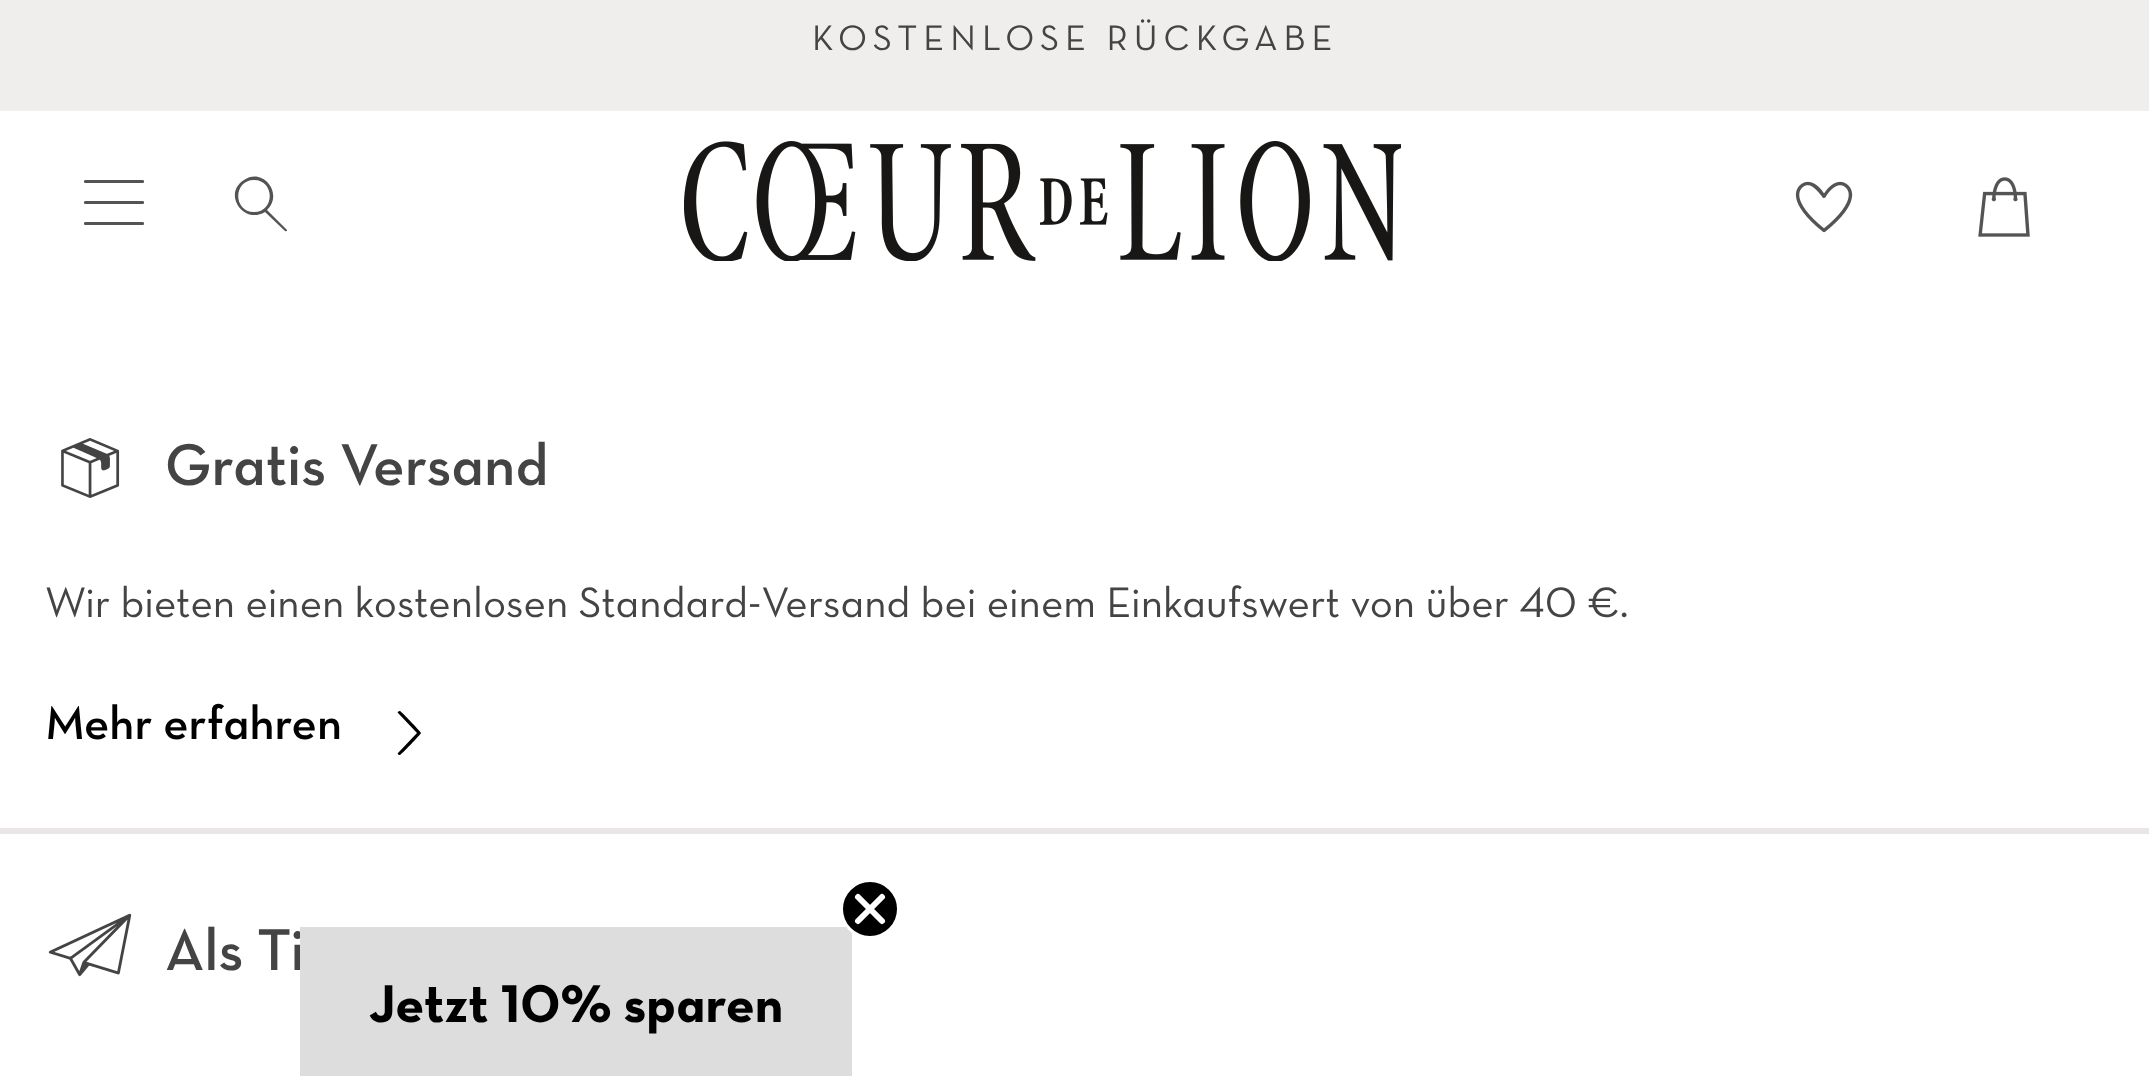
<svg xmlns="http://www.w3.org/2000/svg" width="2149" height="1076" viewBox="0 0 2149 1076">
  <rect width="100%" height="100%" fill="#ffffff"/>
  <rect x="0" y="0" width="2149" height="111" fill="#efeeec"/>
  <text x="812" y="50" font-family="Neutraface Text" font-size="36" letter-spacing="6" fill="#454444">KOSTENLOSE RÜCKGABE</text>
  <path d="M85.5 180H135V183H85.5C84.5 183 84 182.5 84 181.5C84 180.5 84.5 180 85.5 180Z" fill="#545454"/>
  <path d="M93 180H142.5C143.5 180 144 180.5 144 181.5C144 182.5 143.5 183 142.5 183H93Z" fill="#545454"/>
  <path d="M85.5 201H135V204H85.5C84.5 204 84 203.5 84 202.5C84 201.5 84.5 201 85.5 201Z" fill="#545454"/>
  <path d="M93 201H142.5C143.5 201 144 201.5 144 202.5C144 203.5 143.5 204 142.5 204H93Z" fill="#545454"/>
  <path d="M85.5 222H135V225H85.5C84.5 225 84 224.5 84 223.5C84 222.5 84.5 222 85.5 222Z" fill="#545454"/>
  <path d="M93 222H142.5C143.5 222 144 222.5 144 223.5C144 224.5 143.5 225 142.5 225H93Z" fill="#545454"/>
  <path d="M254 212C233 212 233 180 254 180C275 180 275 212 254 212M286 229L267 210C284 194 263 167 244 180C222 194 244 225 265 212L285 231C287 232 288 230 286 229" fill="#545454"/>
  <image x="684" y="141" width="717" height="120" href="img1.png"/>
  <image x="1795" y="181" width="58" height="52" href="img2.png"/>
  <image x="1978" y="177" width="52" height="60" href="img3.png"/>
  <image x="61" y="438" width="59" height="60" href="img4.png"/>
  <text x="165" y="485" font-family="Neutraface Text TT" font-size="60" font-weight="600" fill="#454444">Gratis Versand</text>
  <text x="45" y="617" font-family="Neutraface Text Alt" font-size="43.3" fill="#454444">Wir bieten einen kostenlosen Standard-Versand bei einem Einkaufswert von über 40 €.</text>
  <text x="45" y="739" font-family="Neutraface Text TT" font-size="48" font-weight="600" fill="#000000">Mehr erfahren</text>
  <path d="M417 733L398 713C397 712 399 711 400 711C401 711 421 732 421 733C421 734 401 755 400 755C399 755 397 754 398 753Z" fill="#000000" fill-rule="evenodd"/>
  <rect x="0" y="828" width="2149" height="6" fill="#eae6e7"/>
  <image x="48" y="913" width="84" height="64" href="img5.png"/>
  <text x="165" y="970" font-family="Neutraface Text TT" font-size="60" font-weight="600" fill="#454444">Als Ti</text>
  <rect x="300" y="927" width="552" height="149" fill="#dddddd"/>
  <circle cx="870" cy="909" r="28.5" fill="#000000" stroke="#ffffff" stroke-width="3"/>
  <path d="M858 897L882 921M858 921L882 897Z" fill="none" stroke="#ffffff" stroke-width="6" stroke-linecap="round" stroke-linejoin="round"/>
  <text x="369" y="1022" font-family="Neutraface Text Alt" font-size="54" font-weight="bold" fill="#000000">Jetzt 10% sparen</text>
</svg>
